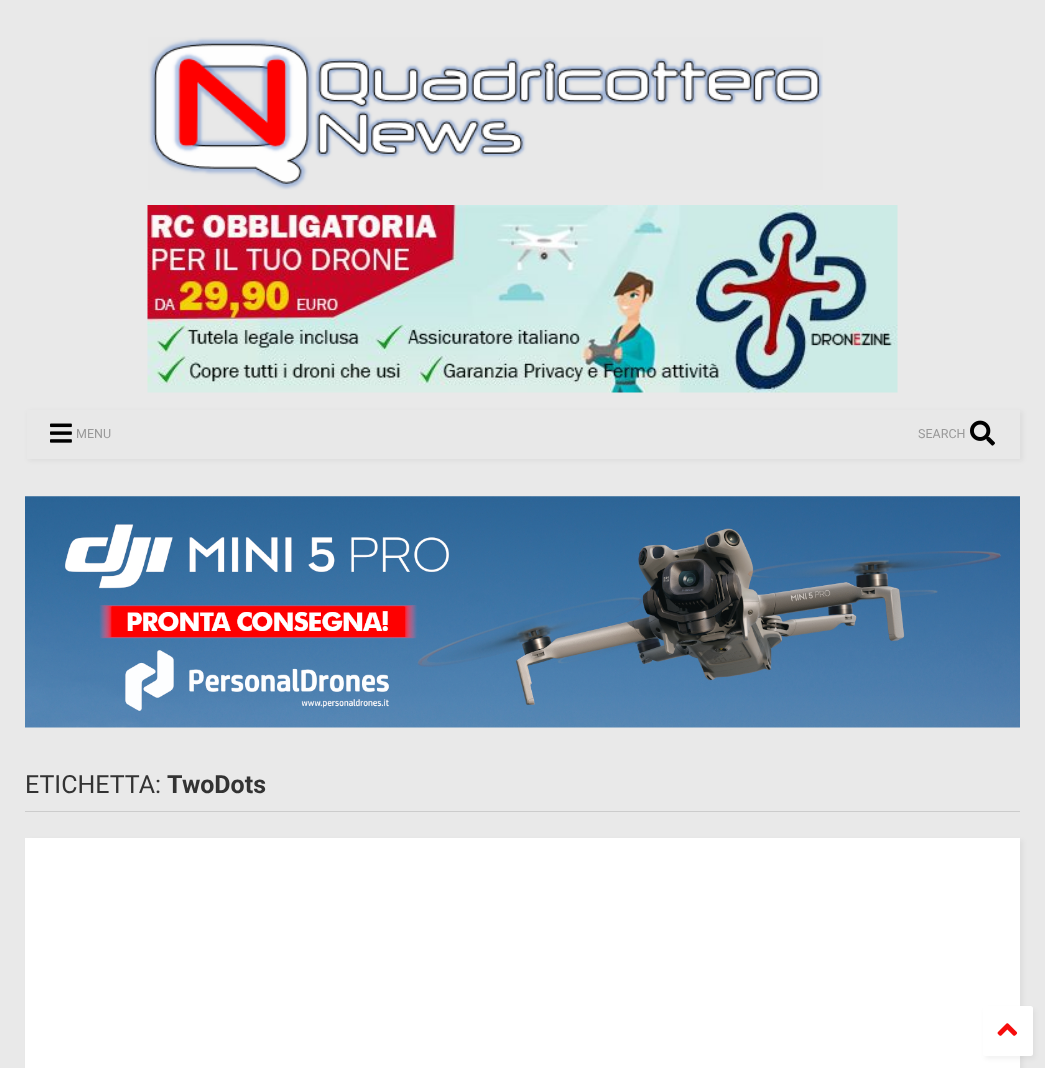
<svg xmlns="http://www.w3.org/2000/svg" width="1045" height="1068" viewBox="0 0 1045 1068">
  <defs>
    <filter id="blur1" x="-50%" y="-200%" width="200%" height="500%"><feGaussianBlur stdDeviation="2"/></filter>
  </defs>
  <rect width="100%" height="100%" fill="#e9e9e9"/>
  <image x="148" y="37" width="675" height="153" href="img1.png"/>
  <image x="147" y="205" width="751" height="188" href="img2.png"/>
  <rect x="28" y="411" width="995" height="50" fill="#000000" fill-opacity="0.05" filter="url(#blur1)"/>
  <rect x="27" y="410" width="993" height="49" fill="#e8e8e8"/>
  <image x="50" y="423" width="22" height="20" href="img3.png"/>
  <text x="76" y="438" font-family="Roboto" font-size="12.5" fill="#999999">MENU</text>
  <text x="918" y="438" font-family="Roboto" font-size="12.5" fill="#999999">SEARCH</text>
  <image x="970" y="420" width="25" height="26" href="img4.png"/>
  <image x="25" y="496" width="995" height="232" href="img5.png"/>
  <rect x="25" y="811" width="995" height="1" fill="#cccccc"/>
  <text x="25" y="793" font-family="Roboto" font-size="25" fill="#333333">ETICHETTA:</text>
  <text x="167" y="793" font-family="Roboto" font-size="25" font-weight="bold" fill="#333333">TwoDots</text>
  <rect x="28" y="840" width="995" height="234" fill="#000000" fill-opacity="0.05" filter="url(#blur1)"/>
  <rect x="25" y="838" width="995" height="230" fill="#ffffff"/>
  <rect x="985" y="1009" width="50" height="50" rx="2.5" fill="#000000" fill-opacity="0.05" filter="url(#blur1)"/>
  <rect x="983" y="1006" width="50" height="50" rx="2.5" fill="#ffffff"/>
  <image x="997" y="1023" width="21" height="13" href="img6.png"/>
</svg>
